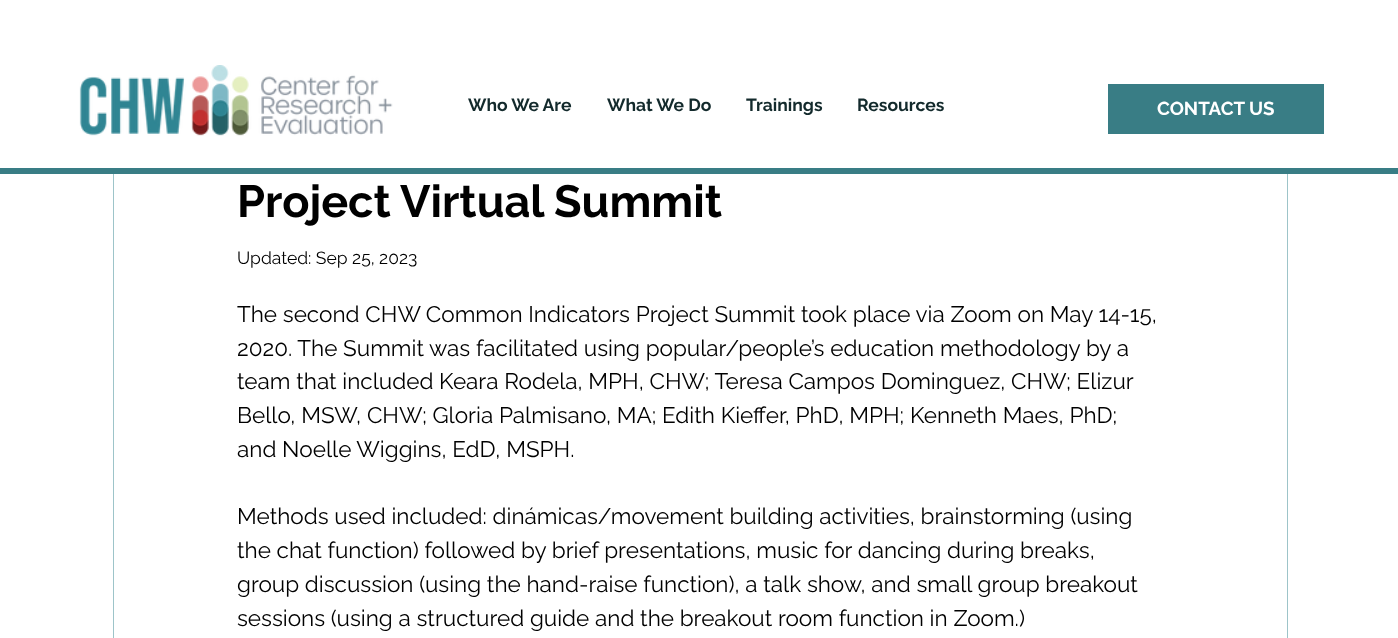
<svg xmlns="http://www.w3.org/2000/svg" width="1398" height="638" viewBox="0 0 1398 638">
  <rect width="100%" height="100%" fill="#ffffff"/>
  <rect x="113.5" y="19.5" width="1174" height="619" fill="none" stroke="#9dc4c9"/>
  <rect x="113" y="19" width="1175" height="149" fill="#ffffff"/>
  <rect x="0" y="168" width="1398" height="6" fill="#397d85"/>
  <image x="79" y="65" width="314" height="71" href="img1.png"/>
  <text x="468" y="111" font-family="Raleway" font-size="17.5" font-weight="bold" fill="#132a2c">Who We Are</text>
  <text x="607" y="111" font-family="Raleway" font-size="17.5" font-weight="bold" fill="#132a2c">What We Do</text>
  <text x="746" y="111" font-family="Raleway" font-size="17.5" font-weight="bold" fill="#132a2c">Trainings</text>
  <text x="857" y="111" font-family="Raleway" font-size="17.5" font-weight="bold" fill="#132a2c">Resources</text>
  <rect x="1108" y="84" width="216" height="50" fill="#397d85"/>
  <text x="1157" y="115" font-family="Raleway" font-size="18.75" font-weight="bold" fill="#ffffff">CONTACT US</text>
  <text x="237" y="217" font-family="Raleway" font-size="45" font-weight="bold" fill="#000000">Project Virtual Summit</text>
  <text x="237" y="264" font-family="Raleway" font-size="17.5" fill="#000000">Updated: Sep 25, 2023</text>
  <text x="237" y="322" font-family="Raleway" font-size="22.5" fill="#000000">The second CHW Common Indicators Project Summit took place via Zoom on May 14-15,</text>
  <text x="237" y="356" font-family="Raleway" font-size="22.5" fill="#000000">2020. The Summit was facilitated using popular/people’s education methodology by a</text>
  <text x="237" y="389" font-family="Raleway" font-size="22.5" fill="#000000">team that included Keara Rodela, MPH, CHW; Teresa Campos Dominguez, CHW; Elizur</text>
  <text x="237" y="423" font-family="Raleway" font-size="22.5" fill="#000000">Bello, MSW, CHW; Gloria Palmisano, MA; Edith Kieffer, PhD, MPH; Kenneth Maes, PhD;</text>
  <text x="237" y="457" font-family="Raleway" font-size="22.5" fill="#000000">and Noelle Wiggins, EdD, MSPH.</text>
  <text x="237" y="524" font-family="Raleway" font-size="22.5" fill="#000000">Methods used included: dinámicas/movement building activities, brainstorming (using</text>
  <text x="237" y="558" font-family="Raleway" font-size="22.5" fill="#000000">the chat function) followed by brief presentations, music for dancing during breaks,</text>
  <text x="237" y="592" font-family="Raleway" font-size="22.5" fill="#000000">group discussion (using the hand-raise function), a talk show, and small group breakout</text>
  <text x="237" y="626" font-family="Raleway" font-size="22.5" fill="#000000">sessions (using a structured guide and the breakout room function in Zoom.)</text>
</svg>
